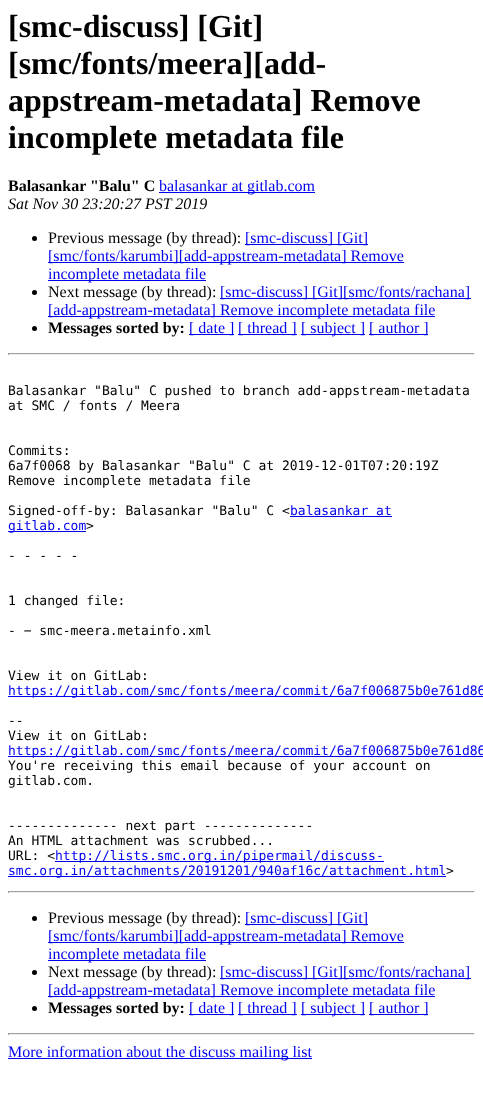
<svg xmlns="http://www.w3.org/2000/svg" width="483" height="1096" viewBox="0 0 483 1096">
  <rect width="100%" height="100%" fill="#ffffff"/>
  <text x="8" y="37" font-family="Liberation Serif" font-size="32" font-weight="bold" fill="#000000">[smc-discuss] [Git]</text>
  <text x="8" y="74" font-family="Liberation Serif" font-size="32" font-weight="bold" fill="#000000">[smc/fonts/meera][add-</text>
  <text x="8" y="111" font-family="Liberation Serif" font-size="32" font-weight="bold" fill="#000000">appstream-metadata] Remove</text>
  <text x="8" y="148" font-family="Liberation Serif" font-size="32" font-weight="bold" fill="#000000">incomplete metadata file</text>
  <text x="8" y="191" font-family="Liberation Serif" font-size="16" font-weight="bold" fill="#000000">Balasankar "Balu" C</text>
  <rect x="159" y="192" width="156" height="1" fill="#0000ee"/>
  <text x="159" y="191" font-family="Liberation Serif" font-size="16" fill="#0000ee">balasankar at gitlab.com</text>
  <text x="8" y="209" font-family="Liberation Serif" font-size="16" font-style="italic" fill="#000000">Sat Nov 30 23:20:27 PST 2019</text>
  <circle cx="34.5" cy="238.5" r="2.5" fill="#000000"/>
  <text x="48" y="243" font-family="Liberation Serif" font-size="16" fill="#000000">Previous message (by thread):</text>
  <rect x="245" y="244" width="123" height="1" fill="#0000ee"/>
  <text x="245" y="243" font-family="Liberation Serif" font-size="16" fill="#0000ee">[smc-discuss] [Git]</text>
  <rect x="48" y="262" width="356" height="1" fill="#0000ee"/>
  <text x="48" y="261" font-family="Liberation Serif" font-size="16" fill="#0000ee">[smc/fonts/karumbi][add-appstream-metadata] Remove</text>
  <rect x="48" y="280" width="158" height="1" fill="#0000ee"/>
  <text x="48" y="279" font-family="Liberation Serif" font-size="16" fill="#0000ee">incomplete metadata file</text>
  <circle cx="34.5" cy="292.5" r="2.5" fill="#000000"/>
  <text x="48" y="297" font-family="Liberation Serif" font-size="16" fill="#000000">Next message (by thread):</text>
  <rect x="220" y="298" width="251" height="1" fill="#0000ee"/>
  <text x="220" y="297" font-family="Liberation Serif" font-size="16" fill="#0000ee">[smc-discuss] [Git][smc/fonts/rachana]</text>
  <rect x="48" y="316" width="387" height="1" fill="#0000ee"/>
  <text x="48" y="315" font-family="Liberation Serif" font-size="16" fill="#0000ee">[add-appstream-metadata] Remove incomplete metadata file</text>
  <circle cx="34.5" cy="328.5" r="2.5" fill="#000000"/>
  <text x="48" y="333" font-family="Liberation Serif" font-size="16" font-weight="bold" fill="#000000">Messages sorted by:</text>
  <rect x="189" y="334" width="45" height="1" fill="#0000ee"/>
  <text x="189" y="333" font-family="Liberation Serif" font-size="16" fill="#0000ee">[ date ]</text>
  <rect x="238" y="334" width="59" height="1" fill="#0000ee"/>
  <text x="238" y="333" font-family="Liberation Serif" font-size="16" fill="#0000ee">[ thread ]</text>
  <rect x="301" y="334" width="64" height="1" fill="#0000ee"/>
  <text x="301" y="333" font-family="Liberation Serif" font-size="16" fill="#0000ee">[ subject ]</text>
  <rect x="369" y="334" width="59" height="1" fill="#0000ee"/>
  <text x="369" y="333" font-family="Liberation Serif" font-size="16" fill="#0000ee">[ author ]</text>
  <rect x="8" y="353" width="467" height="1" fill="#9f9f9f"/>
  <rect x="474" y="353" width="1" height="2" fill="#eeeeee"/>
  <rect x="8" y="354" width="467" height="1" fill="#eeeeee"/>
  <rect x="8" y="353" width="1" height="2" fill="#9f9f9f"/>
  <text x="8" y="395" font-family="DejaVu Sans Mono" font-size="13" fill="#000000">Balasankar "Balu" C pushed to branch add-appstream-metadata</text>
  <text x="8" y="410" font-family="DejaVu Sans Mono" font-size="13" fill="#000000">at SMC / fonts / Meera</text>
  <text x="8" y="455" font-family="DejaVu Sans Mono" font-size="13" fill="#000000">Commits:</text>
  <text x="8" y="470" font-family="DejaVu Sans Mono" font-size="13" fill="#000000">6a7f0068 by Balasankar "Balu" C at 2019-12-01T07:20:19Z</text>
  <text x="8" y="485" font-family="DejaVu Sans Mono" font-size="13" fill="#000000">Remove incomplete metadata file</text>
  <text x="8" y="515" font-family="DejaVu Sans Mono" font-size="13" fill="#000000">Signed-off-by: Balasankar "Balu" C &lt;</text>
  <text x="290" y="515" font-family="DejaVu Sans Mono" font-size="13" fill="#0000ee">balasankar at</text>
  <rect x="290" y="516" width="102" height="1" fill="#0000ee"/>
  <rect x="8" y="531" width="78" height="1" fill="#0000ee"/>
  <text x="8" y="530" font-family="DejaVu Sans Mono" font-size="13" fill="#0000ee">gitlab.com</text>
  <text x="86" y="530" font-family="DejaVu Sans Mono" font-size="13" fill="#000000">&gt;</text>
  <text x="8" y="560" font-family="DejaVu Sans Mono" font-size="13" fill="#000000">- - - - -</text>
  <text x="8" y="605" font-family="DejaVu Sans Mono" font-size="13" fill="#000000">1 changed file:</text>
  <text x="8" y="635" font-family="DejaVu Sans Mono" font-size="13" fill="#000000">- − smc-meera.metainfo.xml</text>
  <text x="8" y="680" font-family="DejaVu Sans Mono" font-size="13" fill="#000000">View it on GitLab:</text>
  <rect x="8" y="696" width="475" height="1" fill="#0000ee"/>
  <text x="8" y="695" font-family="DejaVu Sans Mono" font-size="13" fill="#0000ee">https://gitlab.com/smc/fonts/meera/commit/6a7f006875b0e761d86</text>
  <text x="8" y="725" font-family="DejaVu Sans Mono" font-size="13" fill="#000000">--</text>
  <text x="8" y="740" font-family="DejaVu Sans Mono" font-size="13" fill="#000000">View it on GitLab:</text>
  <rect x="8" y="756" width="475" height="1" fill="#0000ee"/>
  <text x="8" y="755" font-family="DejaVu Sans Mono" font-size="13" fill="#0000ee">https://gitlab.com/smc/fonts/meera/commit/6a7f006875b0e761d86</text>
  <text x="8" y="770" font-family="DejaVu Sans Mono" font-size="13" fill="#000000">You're receiving this email because of your account on</text>
  <text x="8" y="785" font-family="DejaVu Sans Mono" font-size="13" fill="#000000">gitlab.com.</text>
  <text x="8" y="830" font-family="DejaVu Sans Mono" font-size="13" fill="#000000">-------------- next part --------------</text>
  <text x="8" y="845" font-family="DejaVu Sans Mono" font-size="13" fill="#000000">An HTML attachment was scrubbed...</text>
  <text x="8" y="860" font-family="DejaVu Sans Mono" font-size="13" fill="#000000">URL: &lt;</text>
  <rect x="55" y="861" width="329" height="1" fill="#0000ee"/>
  <text x="55" y="860" font-family="DejaVu Sans Mono" font-size="13" fill="#0000ee">http://lists.smc.org.in/pipermail/discuss-</text>
  <rect x="8" y="876" width="438" height="1" fill="#0000ee"/>
  <text x="8" y="875" font-family="DejaVu Sans Mono" font-size="13" fill="#0000ee">smc.org.in/attachments/20191201/940af16c/attachment.html</text>
  <text x="446" y="875" font-family="DejaVu Sans Mono" font-size="13" fill="#000000">&gt;</text>
  <rect x="8" y="891" width="467" height="1" fill="#9f9f9f"/>
  <rect x="474" y="891" width="1" height="2" fill="#eeeeee"/>
  <rect x="8" y="892" width="467" height="1" fill="#eeeeee"/>
  <rect x="8" y="891" width="1" height="2" fill="#9f9f9f"/>
  <circle cx="34.5" cy="918.5" r="2.5" fill="#000000"/>
  <text x="48" y="923" font-family="Liberation Serif" font-size="16" fill="#000000">Previous message (by thread):</text>
  <rect x="245" y="924" width="123" height="1" fill="#0000ee"/>
  <text x="245" y="923" font-family="Liberation Serif" font-size="16" fill="#0000ee">[smc-discuss] [Git]</text>
  <rect x="48" y="942" width="356" height="1" fill="#0000ee"/>
  <text x="48" y="941" font-family="Liberation Serif" font-size="16" fill="#0000ee">[smc/fonts/karumbi][add-appstream-metadata] Remove</text>
  <rect x="48" y="960" width="158" height="1" fill="#0000ee"/>
  <text x="48" y="959" font-family="Liberation Serif" font-size="16" fill="#0000ee">incomplete metadata file</text>
  <circle cx="34.5" cy="972.5" r="2.5" fill="#000000"/>
  <text x="48" y="977" font-family="Liberation Serif" font-size="16" fill="#000000">Next message (by thread):</text>
  <rect x="220" y="978" width="251" height="1" fill="#0000ee"/>
  <text x="220" y="977" font-family="Liberation Serif" font-size="16" fill="#0000ee">[smc-discuss] [Git][smc/fonts/rachana]</text>
  <rect x="48" y="996" width="387" height="1" fill="#0000ee"/>
  <text x="48" y="995" font-family="Liberation Serif" font-size="16" fill="#0000ee">[add-appstream-metadata] Remove incomplete metadata file</text>
  <circle cx="34.5" cy="1008.5" r="2.5" fill="#000000"/>
  <text x="48" y="1013" font-family="Liberation Serif" font-size="16" font-weight="bold" fill="#000000">Messages sorted by:</text>
  <rect x="189" y="1014" width="45" height="1" fill="#0000ee"/>
  <text x="189" y="1013" font-family="Liberation Serif" font-size="16" fill="#0000ee">[ date ]</text>
  <rect x="238" y="1014" width="59" height="1" fill="#0000ee"/>
  <text x="238" y="1013" font-family="Liberation Serif" font-size="16" fill="#0000ee">[ thread ]</text>
  <rect x="301" y="1014" width="64" height="1" fill="#0000ee"/>
  <text x="301" y="1013" font-family="Liberation Serif" font-size="16" fill="#0000ee">[ subject ]</text>
  <rect x="369" y="1014" width="59" height="1" fill="#0000ee"/>
  <text x="369" y="1013" font-family="Liberation Serif" font-size="16" fill="#0000ee">[ author ]</text>
  <rect x="8" y="1033" width="467" height="1" fill="#9f9f9f"/>
  <rect x="474" y="1033" width="1" height="2" fill="#eeeeee"/>
  <rect x="8" y="1034" width="467" height="1" fill="#eeeeee"/>
  <rect x="8" y="1033" width="1" height="2" fill="#9f9f9f"/>
  <rect x="8" y="1058" width="304" height="1" fill="#0000ee"/>
  <text x="8" y="1057" font-family="Liberation Serif" font-size="16" fill="#0000ee">More information about the discuss mailing list</text>
</svg>
